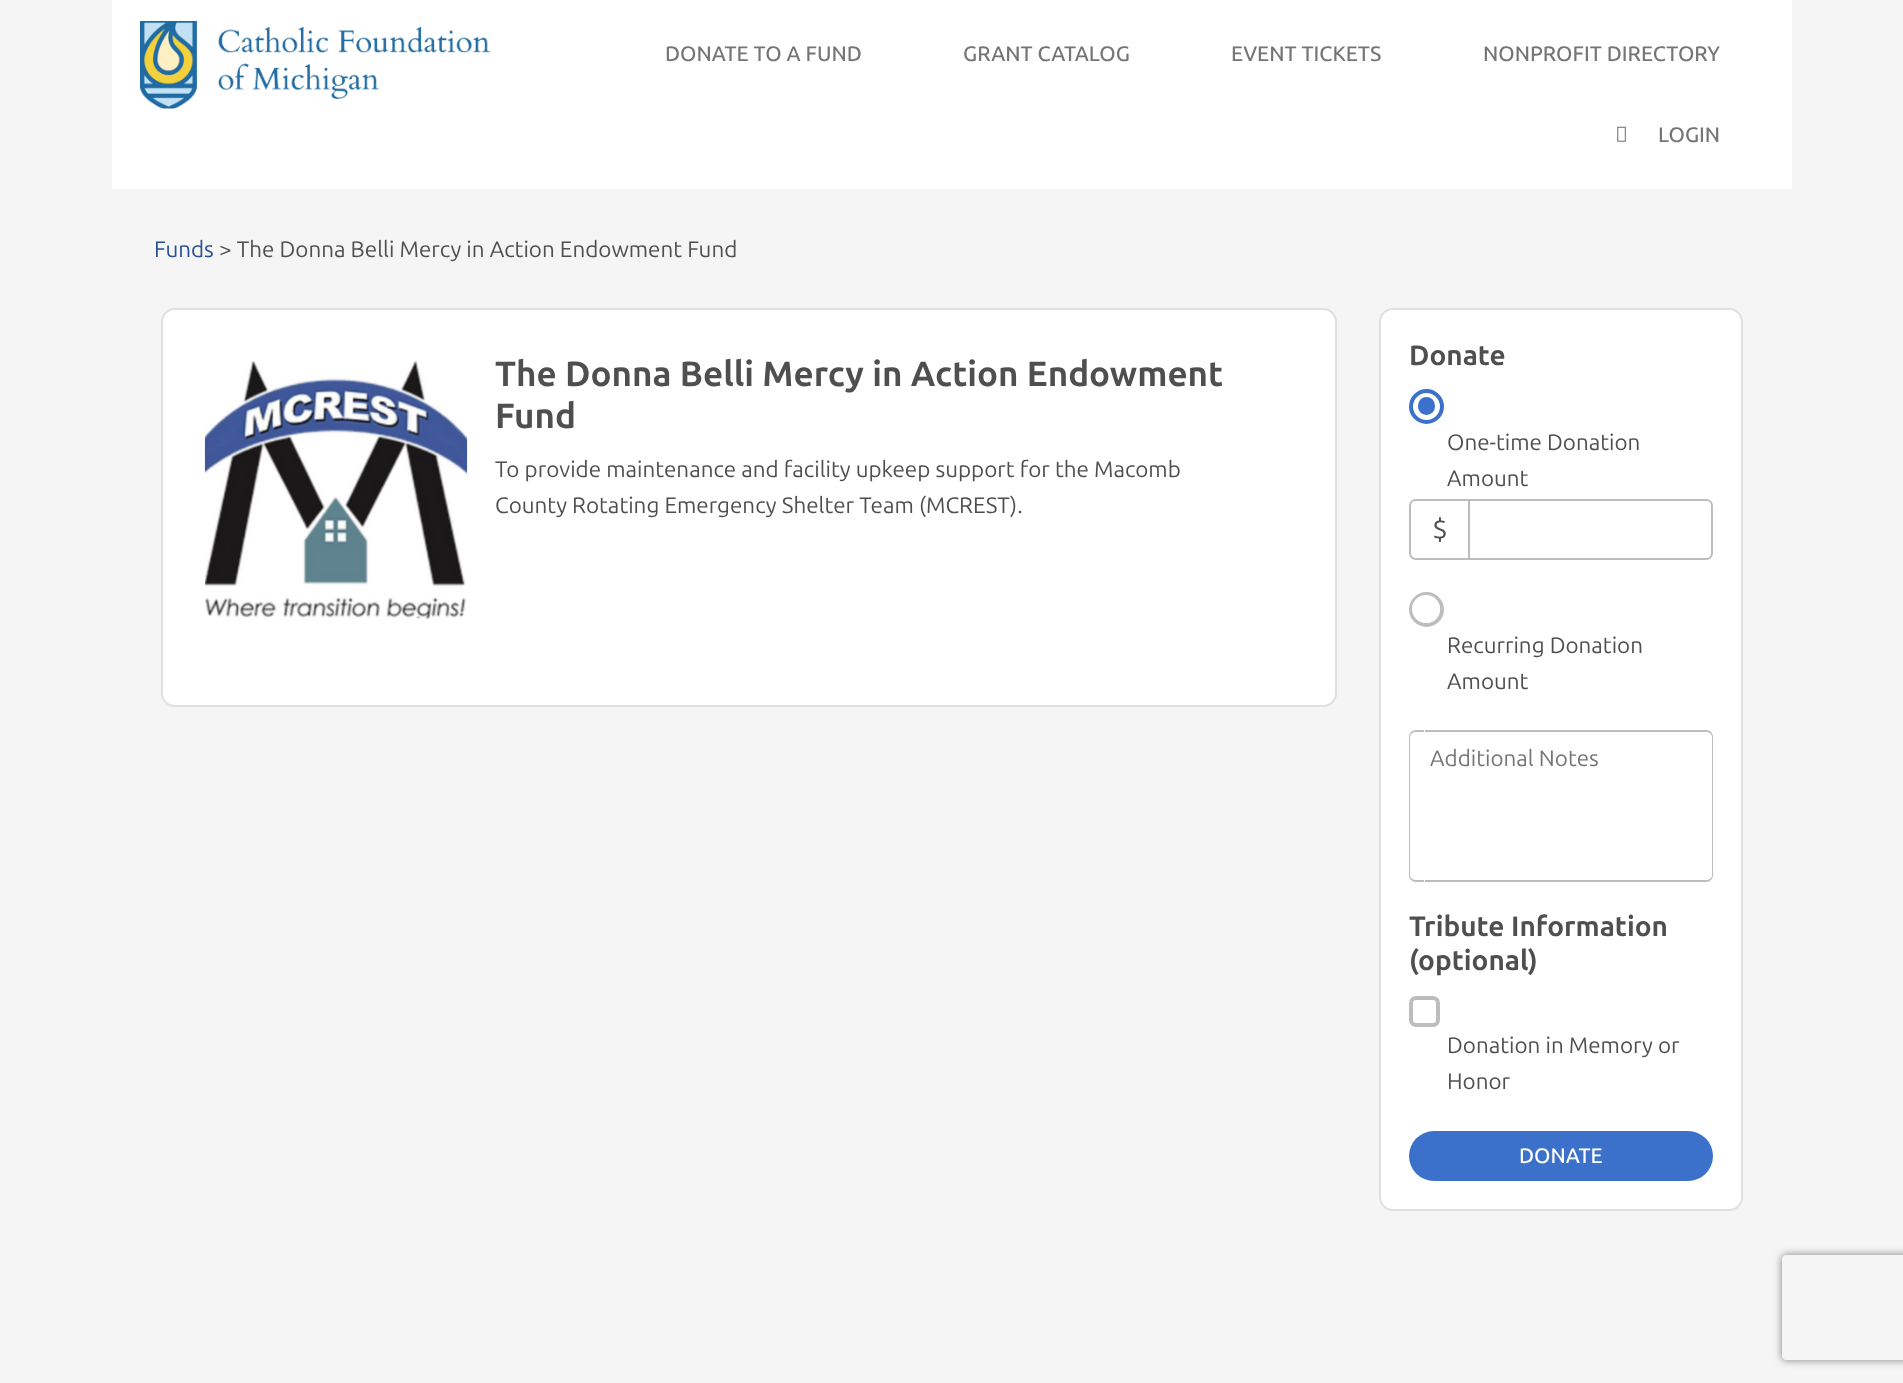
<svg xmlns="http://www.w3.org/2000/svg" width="1903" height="1383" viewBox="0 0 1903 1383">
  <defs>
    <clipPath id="clip1"><path d="M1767 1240H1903V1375H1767ZM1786 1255H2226C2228 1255 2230 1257 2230 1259V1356C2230 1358 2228 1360 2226 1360H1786C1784 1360 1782 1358 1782 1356V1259C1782 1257 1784 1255 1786 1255Z" clip-rule="evenodd"/></clipPath>
    <filter id="blur1" x="-50%" y="-200%" width="200%" height="500%"><feGaussianBlur stdDeviation="4.5"/></filter>
  </defs>
  <rect width="100%" height="100%" fill="#f5f5f5"/>
  <rect x="112" y="0" width="1680" height="189" fill="#ffffff"/>
  <image x="140" y="21" width="350" height="88" href="img1.png"/>
  <text x="665" y="61" font-family="Ubuntu" font-size="21" font-weight="500" fill="#757575">DONATE TO A FUND</text>
  <text x="963" y="61" font-family="Ubuntu" font-size="21" font-weight="500" fill="#757575">GRANT CATALOG</text>
  <text x="1231" y="61" font-family="Ubuntu" font-size="21" font-weight="500" fill="#757575">EVENT TICKETS</text>
  <text x="1483" y="61" font-family="Ubuntu" font-size="21" font-weight="500" fill="#757575">NONPROFIT DIRECTORY</text>
  <image x="1617" y="126" width="9" height="16" href="img2.png"/>
  <text x="1658" y="142" font-family="Ubuntu" font-size="21" font-weight="500" fill="#757575">LOGIN</text>
  <text x="154" y="257" font-family="Ubuntu" font-size="22.4" fill="#274f91">Funds</text>
  <text x="219" y="257" font-family="Ubuntu" font-size="22.4" fill="#4f4f4f">&gt; The Donna Belli Mercy in Action Endowment Fund</text>
  <rect x="162" y="309" width="1174" height="397" rx="13" fill="#ffffff" stroke="#e0e0e0" stroke-width="2"/>
  <image x="204" y="360" width="264" height="259" href="img3.png"/>
  <text x="495" y="386" font-family="Ubuntu" font-size="35" font-weight="bold" fill="#4f4f4f">The Donna Belli Mercy in Action Endowment</text>
  <text x="495" y="428" font-family="Ubuntu" font-size="35" font-weight="bold" fill="#4f4f4f">Fund</text>
  <text x="495" y="477" font-family="Ubuntu" font-size="22.4" fill="#4f4f4f">To provide maintenance and facility upkeep support for the Macomb</text>
  <text x="495" y="513" font-family="Ubuntu" font-size="22.4" fill="#4f4f4f">County Rotating Emergency Shelter Team (MCREST).</text>
  <rect x="1380" y="309" width="362" height="901" rx="13" fill="#ffffff" stroke="#e0e0e0" stroke-width="2"/>
  <text x="1409" y="365" font-family="Ubuntu" font-size="28" font-weight="bold" fill="#4f4f4f">Donate</text>
  <circle cx="1426.5" cy="406.5" r="15.5" fill="none" stroke="#3b71ca" stroke-width="4"/>
  <rect x="1418" y="397" width="17" height="18" rx="8.5" fill="#3b71ca"/>
  <text x="1447" y="450" font-family="Ubuntu" font-size="22.4" fill="#4f4f4f">One-time Donation</text>
  <text x="1447" y="486" font-family="Ubuntu" font-size="22.4" fill="#4f4f4f">Amount</text>
  <path d="M1416 500H1469V559H1416C1412.5 559 1410 556.5 1410 553V506C1410 502.5 1412.5 500 1416 500Z" fill="none" stroke="#bdbdbd" stroke-width="2"/>
  <text x="1432" y="539" font-family="Ubuntu" font-size="28" fill="#4f4f4f">$</text>
  <path d="M1469 500H1706C1709.5 500 1712 502.5 1712 506V553C1712 556.5 1709.5 559 1706 559H1469Z" fill="none" stroke="#bdbdbd" stroke-width="2"/>
  <circle cx="1426.5" cy="609.5" r="15.5" fill="none" stroke="#bdbdbd" stroke-width="4"/>
  <circle cx="1426" cy="609" r="14" fill="#ffffff"/>
  <text x="1447" y="653" font-family="Ubuntu" font-size="22.4" fill="#4f4f4f">Recurring Donation</text>
  <text x="1447" y="689" font-family="Ubuntu" font-size="22.4" fill="#4f4f4f">Amount</text>
  <path d="M1416 730H1424V882H1416C1412 882 1409 879 1409 875V737C1409 733 1412 730 1416 730ZM1416 732H1424V880H1416C1413 880 1410 878 1410 875V737C1410 734 1413 732 1416 732Z" fill="#bdbdbd" fill-rule="evenodd"/>
  <rect x="1425" y="730" width="148" height="2" fill="#bdbdbd"/>
  <rect x="1425" y="880" width="148" height="2" fill="#bdbdbd"/>
  <text x="1430" y="766" font-family="Ubuntu" font-size="22.4" fill="#757575">Additional Notes</text>
  <path d="M1573 730H1706C1710 730 1713 733 1713 737V875C1713 879 1710 882 1706 882H1573ZM1573 732H1706C1709 732 1712 734 1712 737V875C1712 878 1709 880 1706 880H1573Z" fill="#bdbdbd" fill-rule="evenodd"/>
  <text x="1409" y="936" font-family="Ubuntu" font-size="28" font-weight="bold" fill="#4f4f4f">Tribute Information</text>
  <text x="1409" y="970" font-family="Ubuntu" font-size="28" font-weight="bold" fill="#4f4f4f">(optional)</text>
  <rect x="1411" y="998" width="27" height="27" rx="5" fill="none" stroke="#bdbdbd" stroke-width="4"/>
  <text x="1447" y="1053" font-family="Ubuntu" font-size="22.4" fill="#4f4f4f">Donation in Memory or</text>
  <text x="1447" y="1089" font-family="Ubuntu" font-size="22.4" fill="#4f4f4f">Honor</text>
  <rect x="1409" y="1131" width="304" height="50" rx="25" fill="#3b71ca"/>
  <text x="1519" y="1163" font-family="Ubuntu" font-size="21" font-weight="500" fill="#ffffff">DONATE</text>
  <g clip-path="url(#clip1)">
    <rect x="1782" y="1255" width="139" height="105" rx="4" fill="#808080" filter="url(#blur1)"/>
  </g>
</svg>
